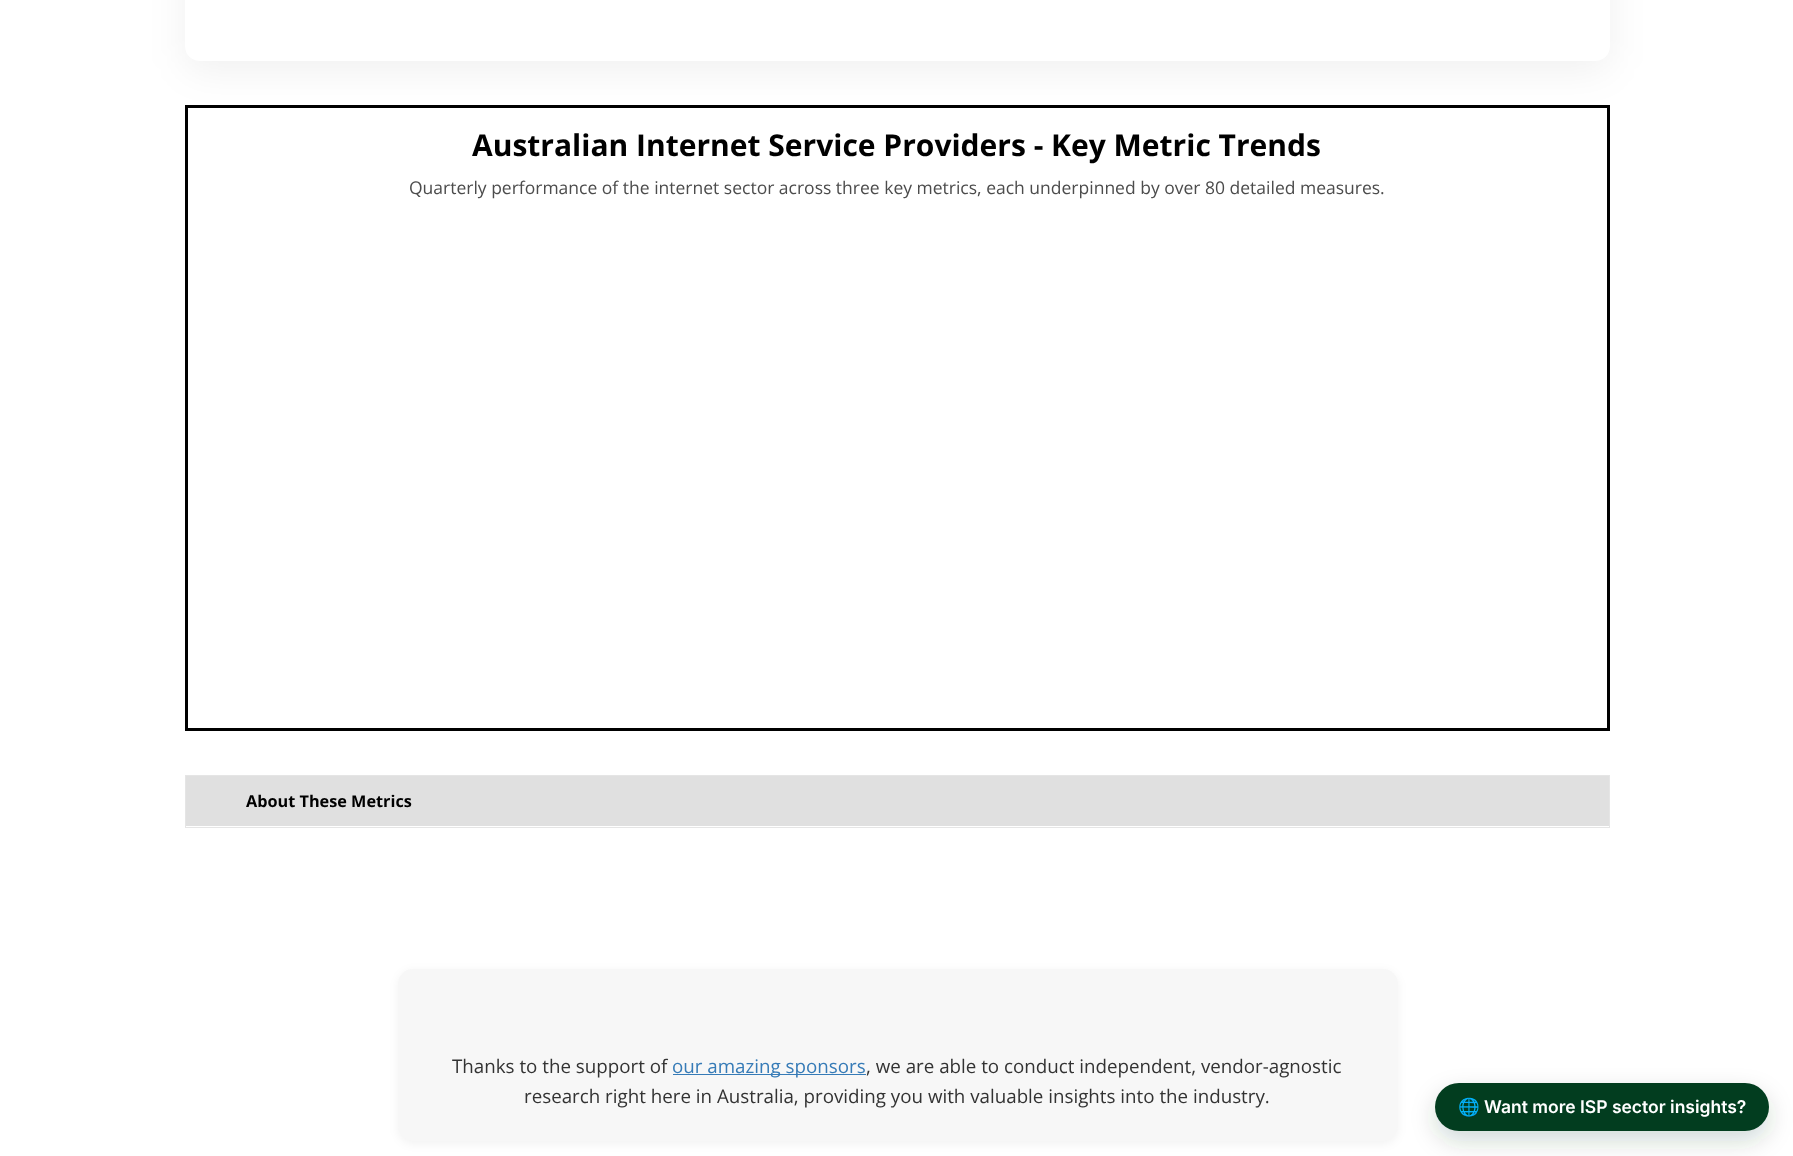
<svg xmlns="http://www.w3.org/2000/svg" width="1793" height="1156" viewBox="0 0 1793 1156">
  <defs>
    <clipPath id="clip1"><path d="M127 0H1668V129H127ZM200-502H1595C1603.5-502 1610-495.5 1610-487V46C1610 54.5 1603.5 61 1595 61H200C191.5 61 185 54.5 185 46V-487C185-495.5 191.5-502 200-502Z" clip-rule="evenodd"/></clipPath>
    <filter id="blur1" x="-50%" y="-200%" width="200%" height="500%"><feGaussianBlur stdDeviation="19"/></filter>
    <filter id="blur2" x="-50%" y="-200%" width="200%" height="500%"><feGaussianBlur stdDeviation="5"/></filter>
    <filter id="blur3" x="-50%" y="-200%" width="200%" height="500%"><feGaussianBlur stdDeviation="12.5"/></filter>
  </defs>
  <rect width="100%" height="100%" fill="#ffffff"/>
  <g clip-path="url(#clip1)">
    <rect x="185" y="-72" width="1425" height="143" rx="15" fill="#000000" fill-opacity="0.06" filter="url(#blur1)"/>
  </g>
  <rect x="186.5" y="106.5" width="1422" height="623" fill="none" stroke="#000000" stroke-width="3"/>
  <text x="472" y="156" font-family="Open Sans" font-size="30" font-weight="bold" fill="#000000">Australian Internet Service Providers - Key Metric Trends</text>
  <text x="409" y="194" font-family="Open Sans" font-size="17.5" fill="#4c4c4c">Quarterly performance of the internet sector across three key metrics, each underpinned by over 80 detailed measures.</text>
  <rect x="185.5" y="775.5" width="1424" height="52" fill="none" stroke="#e5e5e5"/>
  <rect x="186" y="776" width="1423" height="50" fill="#e0e0e0"/>
  <text x="246" y="807" font-family="Open Sans" font-size="16.25" font-weight="bold" fill="#000000">About These Metrics</text>
  <rect x="398" y="971" width="1000" height="173" rx="15" fill="#000000" fill-opacity="0.05" filter="url(#blur2)"/>
  <rect x="398" y="969" width="1000" height="172" rx="15" fill="#f7f7f7"/>
  <text x="452" y="1073" font-family="Open Sans" font-size="18.75" fill="#333333">Thanks to the support of</text>
  <rect x="673" y="1074" width="193" height="1" fill="#367bb7"/>
  <text x="672" y="1073" font-family="Open Sans" font-size="18.75" fill="#367bb7">our amazing sponsors</text>
  <text x="866" y="1073" font-family="Open Sans" font-size="18.75" fill="#333333">, we are able to conduct independent, vendor-agnostic</text>
  <text x="524" y="1103" font-family="Open Sans" font-size="18.75" fill="#333333">research right here in Australia, providing you with valuable insights into the industry.</text>
  <rect x="1435" y="1093" width="334" height="48" rx="24" fill="#023d1f" fill-opacity="0.18" filter="url(#blur3)"/>
  <rect x="1435" y="1083" width="334" height="48" rx="24" fill="#023d1f"/>
  <text x="1458" y="1113" font-family="Noto Color Emoji" font-size="17.5" font-weight="bold" fill="#ffffff">🌐</text>
  <text x="1484" y="1113" font-family="Inter" font-size="17.5" font-weight="600" fill="#ffffff">Want more ISP sector insights?</text>
</svg>
